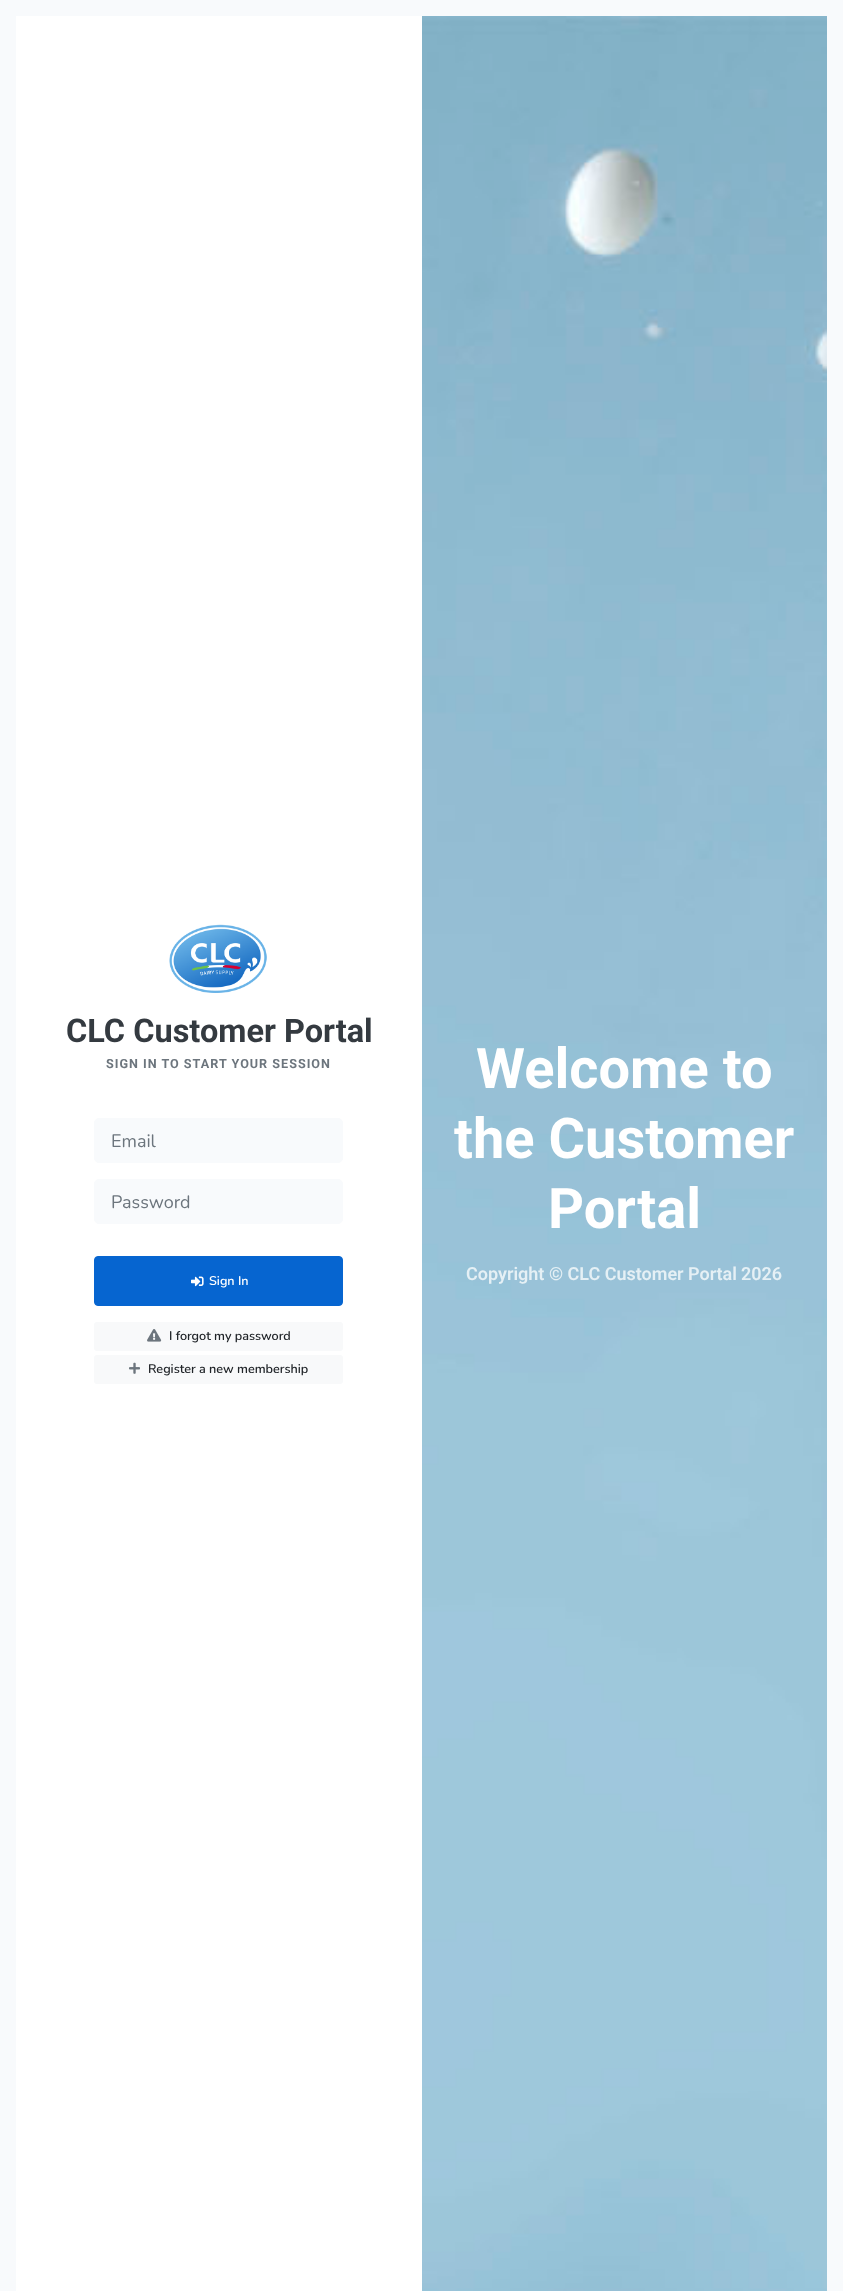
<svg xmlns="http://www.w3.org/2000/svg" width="843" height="2291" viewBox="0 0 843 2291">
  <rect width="100%" height="100%" fill="#f8fafc"/>
  <image x="422" y="16" width="405" height="2275" href="img1.png"/>
  <rect x="16" y="16" width="406" height="2275" fill="#ffffff"/>
  <image x="169" y="924" width="98" height="69" href="img2.png"/>
  <text x="66" y="1042" font-family="Roboto" font-size="32.5" font-weight="bold" fill="#343a40">CLC Customer Portal</text>
  <text x="106" y="1068" font-family="Roboto" font-size="12.6" font-weight="bold" letter-spacing="1" fill="#6c757d">SIGN IN TO START YOUR SESSION</text>
  <rect x="94.5" y="1118.5" width="248" height="44" rx="4.5" fill="#f8fafc" stroke="#f8fafc"/>
  <text x="111" y="1147" font-family="Nunito" font-size="18" fill="#6c757d">Email</text>
  <rect x="94.5" y="1179.5" width="248" height="44" rx="4.5" fill="#f8fafc" stroke="#f8fafc"/>
  <text x="111" y="1208" font-family="Nunito" font-size="18" fill="#6c757d">Password</text>
  <rect x="94.5" y="1256.5" width="248" height="49" rx="3.5" fill="#0665d0" stroke="#0665d0"/>
  <image x="191" y="1276" width="13" height="11" href="img3.png"/>
  <text x="209" y="1285" font-family="Nunito" font-size="12.6" font-weight="600" fill="#ffffff">Sign In</text>
  <rect x="94" y="1322" width="249" height="29" rx="3" fill="#f8f9fa"/>
  <image x="147" y="1329" width="15" height="13" href="img4.png"/>
  <text x="169" y="1340" font-family="Nunito" font-size="12.6" font-weight="600" fill="#212529">I forgot my password</text>
  <rect x="94" y="1355" width="249" height="29" rx="3" fill="#f8f9fa"/>
  <image x="129" y="1362" width="11" height="12" href="img5.png"/>
  <text x="148" y="1373" font-family="Nunito" font-size="12.6" font-weight="600" fill="#212529">Register a new membership</text>
  <text x="476" y="1088" font-family="Roboto" font-size="56" font-weight="bold" fill="#ffffff">Welcome to</text>
  <text x="454" y="1158" font-family="Roboto" font-size="56" font-weight="bold" fill="#ffffff">the Customer</text>
  <text x="548" y="1228" font-family="Roboto" font-size="56" font-weight="bold" fill="#ffffff">Portal</text>
  <text x="466" y="1280" font-family="Roboto" font-size="18" font-weight="600" fill="#e5f0f5">Copyright © CLC Customer Portal</text>
  <text x="741" y="1280" font-family="Roboto" font-size="18" font-weight="600" fill="#e5f0f5">2026</text>
</svg>
